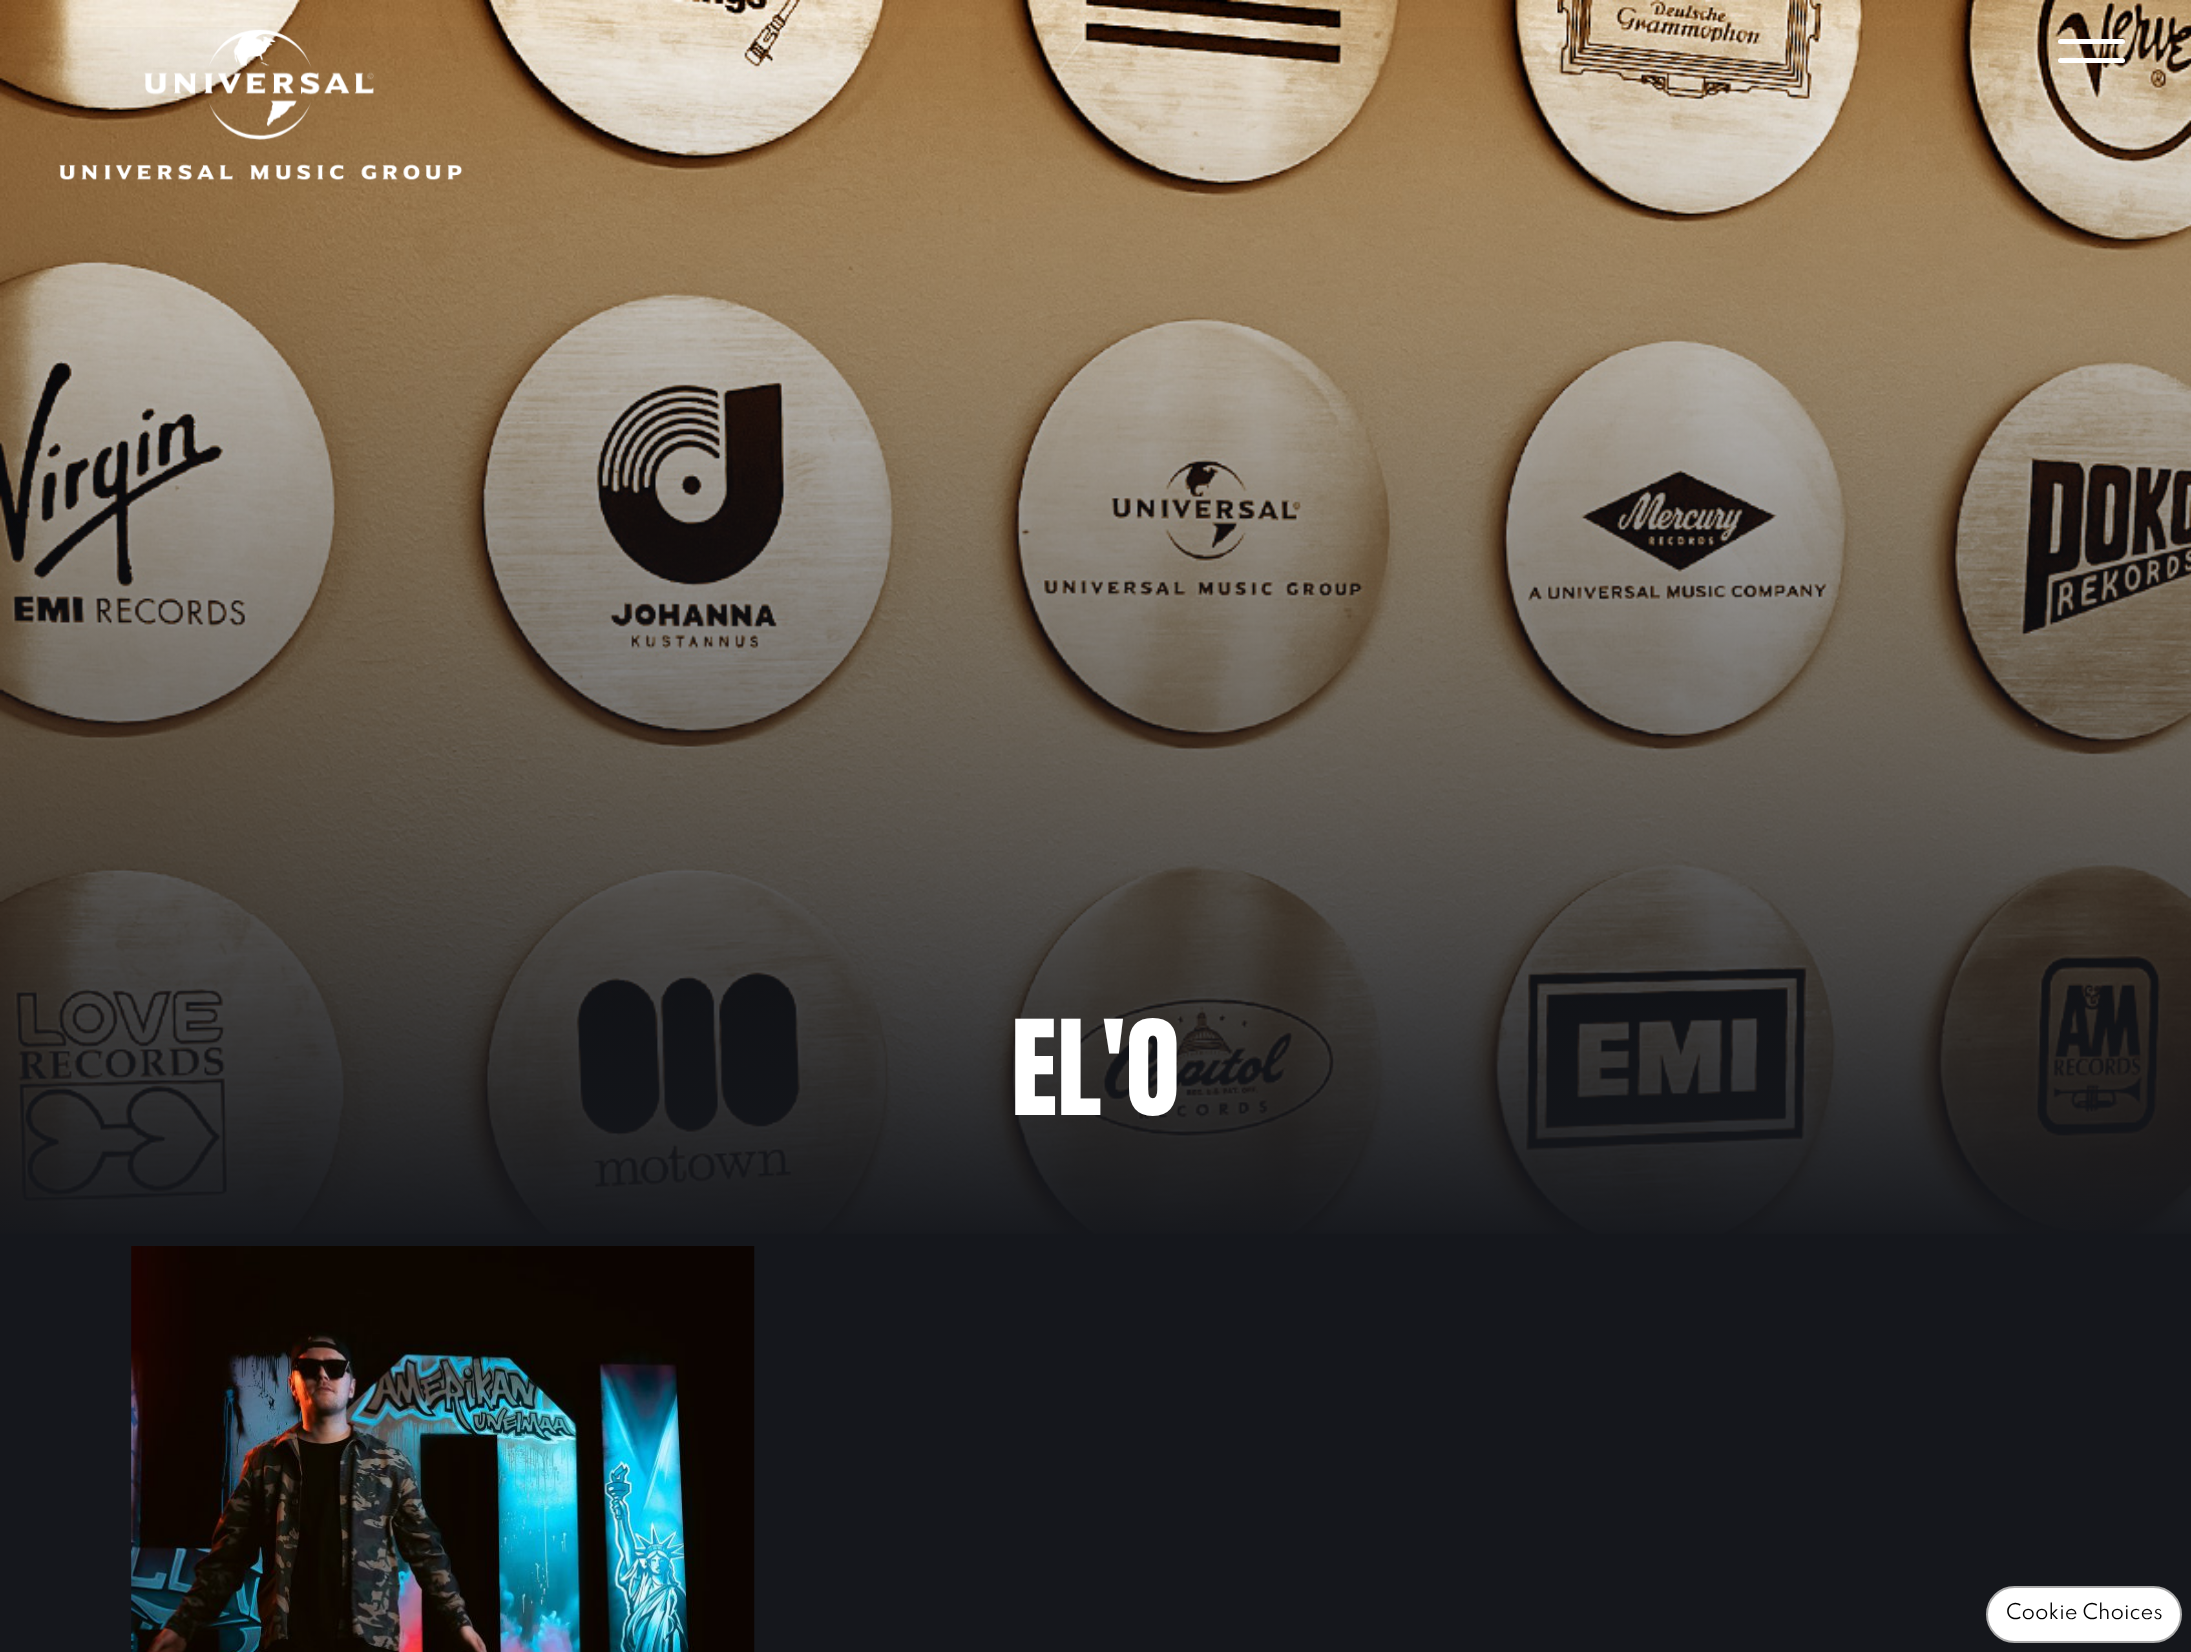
<svg xmlns="http://www.w3.org/2000/svg" width="2191" height="1652" viewBox="0 0 2191 1652">
  <defs>
    <linearGradient id="g1" gradientUnits="userSpaceOnUse" x1="1096" y1="1248" x2="1096" y2="0"><stop offset="0" stop-color="#15171c"/><stop offset="1" stop-color="#15171c" stop-opacity="0"/></linearGradient>
    <filter id="blur1" x="-50%" y="-200%" width="200%" height="500%"><feGaussianBlur stdDeviation="31.5"/></filter>
  </defs>
  <rect width="100%" height="100%" fill="#15171c"/>
  <image x="0" y="0" width="2191" height="1234" href="img2.png"/>
  <rect x="0" y="27" width="2191" height="1207" fill="url(#g1)"/>
  <image x="59" y="29" width="403" height="151" href="img1.png"/>
  <rect x="2058" y="39" width="67" height="5" rx="2.5" fill="#ffffff"/>
  <rect x="2058" y="58" width="67" height="5" rx="2.5" fill="#ffffff"/>
  <text x="1011" y="1115" font-family="Anton" font-size="112" fill="#ffffff">EL'O</text>
  <rect x="194" y="1299" width="497" height="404" fill="#010101" filter="url(#blur1)"/>
  <image x="131" y="1246" width="624" height="406" href="img3.png"/>
  <rect x="1987" y="1587" width="194" height="55" rx="27.5" fill="#ffffff" stroke="#aaaaaa" stroke-width="2"/>
  <text x="2006" y="1619" font-family="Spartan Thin" font-size="19.25" fill="#000000">Cookie Choices</text>
</svg>
